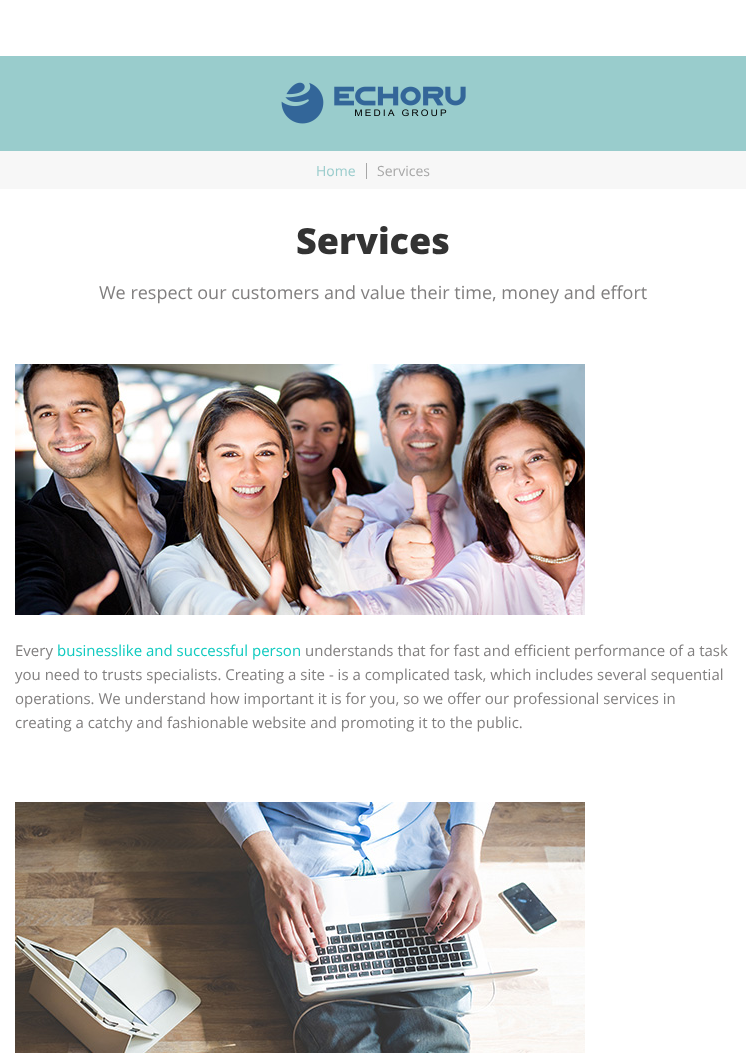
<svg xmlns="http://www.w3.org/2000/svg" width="746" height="1054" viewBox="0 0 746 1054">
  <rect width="100%" height="100%" fill="#ffffff"/>
  <rect x="0" y="56" width="746" height="95" fill="#99cccc"/>
  <image x="281" y="82" width="185" height="42" href="img1.png"/>
  <rect x="0" y="151" width="746" height="38" fill="#f7f7f7"/>
  <text x="316" y="176" font-family="Open Sans" font-size="14" fill="#99cccc">Home</text>
  <rect x="366" y="163" width="1" height="16" fill="#a7a7a7"/>
  <text x="377" y="176" font-family="Open Sans" font-size="14" fill="#a7a7a7">Services</text>
  <text x="296" y="254" font-family="Open Sans" font-size="36" font-weight="800" fill="#333333">Services</text>
  <text x="99" y="299" font-family="Open Sans" font-size="18" fill="#817f7f">We respect our customers and value their time, money and effort</text>
  <image x="15" y="364" width="570" height="251" href="img2.png"/>
  <text x="15" y="656" font-family="Open Sans" font-size="15" fill="#817f7f">Every</text>
  <text x="57" y="656" font-family="Open Sans" font-size="15" fill="#0fcabf">businesslike and successful person</text>
  <text x="305" y="656" font-family="Open Sans" font-size="15" fill="#817f7f">understands that for fast and efficient performance of a task</text>
  <text x="15" y="680" font-family="Open Sans" font-size="15" fill="#817f7f">you need to trusts specialists. Creating a site - is a complicated task, which includes several sequential</text>
  <text x="15" y="704" font-family="Open Sans" font-size="15" fill="#817f7f">operations. We understand how important it is for you, so we offer our professional services in</text>
  <text x="15" y="728" font-family="Open Sans" font-size="15" fill="#817f7f">creating a catchy and fashionable website and promoting it to the public.</text>
  <image x="15" y="802" width="570" height="251" href="img3.png"/>
</svg>
